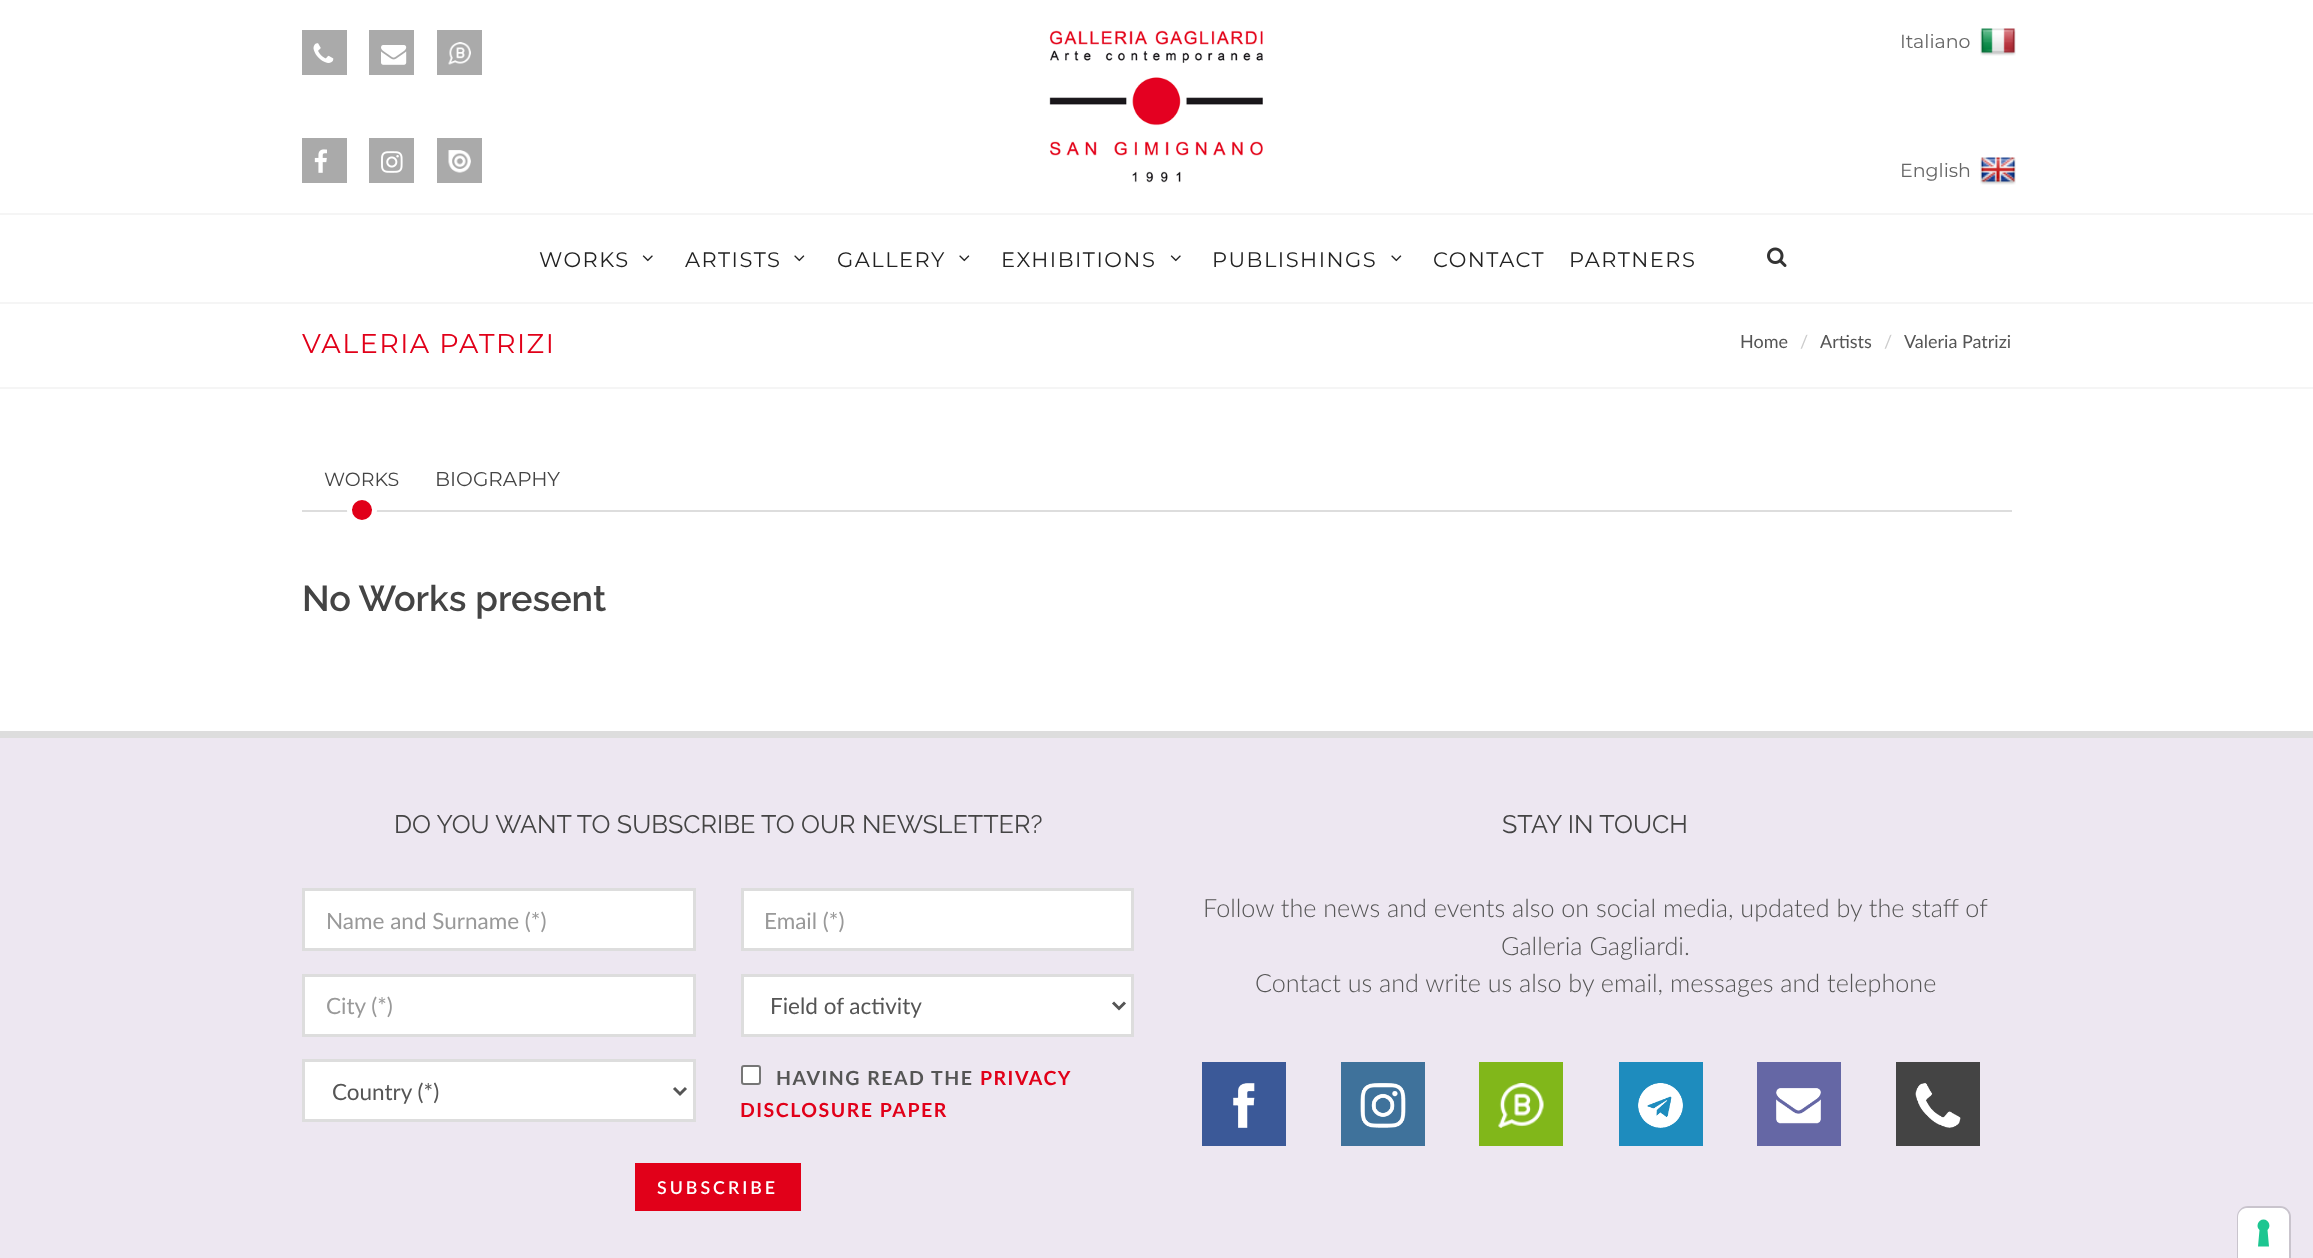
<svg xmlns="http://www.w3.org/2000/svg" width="2313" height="1258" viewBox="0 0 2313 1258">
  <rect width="100%" height="100%" fill="#ffffff"/>
  <rect x="302" y="30" width="45" height="45" fill="#aaaaaa"/>
  <image x="313" y="43" width="21" height="20" href="img1.png"/>
  <rect x="369" y="30" width="45" height="45" fill="#aaaaaa"/>
  <image x="381" y="45" width="26" height="20" href="img2.png"/>
  <rect x="437" y="30" width="45" height="45" fill="#aaaaaa"/>
  <image x="448" y="42" width="23" height="23" href="img3.png"/>
  <rect x="302" y="138" width="45" height="45" fill="#aaaaaa"/>
  <image x="314" y="149" width="13" height="24" href="img4.png"/>
  <rect x="369" y="138" width="45" height="45" fill="#aaaaaa"/>
  <image x="381" y="151" width="22" height="22" href="img5.png"/>
  <rect x="437" y="138" width="45" height="45" fill="#aaaaaa"/>
  <image x="448" y="150" width="23" height="23" href="img6.png"/>
  <image x="1049" y="30" width="214" height="153" href="img7.png"/>
  <text x="1900" y="48" font-family="Montserrat" font-size="19" fill="#666666">Italiano</text>
  <image x="1980" y="28" width="36" height="28" href="img8.png"/>
  <text x="1900" y="177" font-family="Montserrat" font-size="19" fill="#666666">English</text>
  <image x="1980" y="157" width="36" height="28" href="img9.png"/>
  <rect x="0" y="302" width="2313" height="2" fill="#f5f5f5"/>
  <rect x="0" y="213" width="2313" height="2" fill="#f5f5f5"/>
  <text x="539" y="267" font-family="Montserrat" font-size="21" letter-spacing="1.5" fill="#222222">WORKS</text>
  <image x="642" y="255" width="11" height="7" href="img10.png"/>
  <text x="685" y="267" font-family="Montserrat" font-size="21" letter-spacing="1.5" fill="#222222">ARTISTS</text>
  <image x="794" y="255" width="11" height="7" href="img11.png"/>
  <text x="837" y="267" font-family="Montserrat" font-size="21" letter-spacing="1.5" fill="#222222">GALLERY</text>
  <image x="959" y="255" width="11" height="7" href="img11.png"/>
  <text x="1001" y="267" font-family="Montserrat" font-size="21" letter-spacing="1.5" fill="#222222">EXHIBITIONS</text>
  <image x="1170" y="255" width="11" height="7" href="img10.png"/>
  <text x="1212" y="267" font-family="Montserrat" font-size="21" letter-spacing="1.5" fill="#222222">PUBLISHINGS</text>
  <image x="1391" y="255" width="11" height="7" href="img11.png"/>
  <text x="1433" y="267" font-family="Montserrat" font-size="21" letter-spacing="1.5" fill="#222222">CONTACT</text>
  <text x="1569" y="267" font-family="Montserrat" font-size="21" letter-spacing="1.5" fill="#222222">PARTNERS</text>
  <image x="1767" y="247" width="20" height="20" href="img12.png"/>
  <rect x="0" y="387" width="2313" height="2" fill="#f5f5f5"/>
  <text x="302" y="353" font-family="Montserrat" font-size="27" letter-spacing="1.5" fill="#e10019">VALERIA PATRIZI</text>
  <text x="1740" y="348" font-family="Lato" font-size="18" fill="#555555">Home</text>
  <text x="1800" y="348" font-family="Lato" font-size="18" fill="#cccccc">/</text>
  <text x="1820" y="348" font-family="Lato" font-size="18" fill="#555555">Artists</text>
  <text x="1884" y="348" font-family="Lato" font-size="18" fill="#cccccc">/</text>
  <text x="1904" y="348" font-family="Lato" font-size="18" fill="#555555">Valeria Patrizi</text>
  <rect x="302" y="510" width="1710" height="2" fill="#dddddd"/>
  <text x="324" y="486" font-family="Montserrat" font-size="19" fill="#444444">WORKS</text>
  <circle cx="362" cy="510" r="12.5" fill="#e10019" stroke="#ffffff" stroke-width="5"/>
  <text x="435" y="486" font-family="Montserrat" font-size="20" fill="#444444">BIOGRAPHY</text>
  <text x="302" y="611" font-family="Raleway" font-size="36" font-weight="600" fill="#444444">No Works present</text>
  <rect x="0" y="731" width="2313" height="7" fill="#dddddd"/>
  <rect x="0" y="738" width="2313" height="520" fill="#ede7f1"/>
  <text x="394" y="833" font-family="Raleway" font-size="25.2" fill="#444444">DO YOU WANT TO SUBSCRIBE TO OUR NEWSLETTER?</text>
  <rect x="303.5" y="889.5" width="391" height="60" fill="#ffffff" stroke="#dddddd" stroke-width="3"/>
  <text x="326" y="929" font-family="Lato" font-size="22.5" fill="#999999">Name and Surname (*)</text>
  <rect x="742.5" y="889.5" width="390" height="60" fill="#ffffff" stroke="#dddddd" stroke-width="3"/>
  <text x="764" y="929" font-family="Lato" font-size="22.5" fill="#999999">Email (*)</text>
  <rect x="303.5" y="975.5" width="391" height="60" fill="#ffffff" stroke="#dddddd" stroke-width="3"/>
  <text x="326" y="1014" font-family="Lato" font-size="22.5" fill="#999999">City (*)</text>
  <rect x="742.5" y="975.5" width="390" height="60" fill="#ffffff" stroke="#dddddd" stroke-width="3"/>
  <path d="M1113 1002.5L1119 1008.5L1125 1002.5" fill="none" stroke="#555555" stroke-width="3"/>
  <text x="770" y="1014" font-family="Lato" font-size="22.5" fill="#555555">Field of activity</text>
  <rect x="303.5" y="1060.5" width="391" height="60" fill="#ffffff" stroke="#dddddd" stroke-width="3"/>
  <path d="M674 1088L680 1094L686 1088" fill="none" stroke="#555555" stroke-width="3"/>
  <text x="332" y="1100" font-family="Lato" font-size="22.5" fill="#555555">Country (*)</text>
  <rect x="742" y="1066" width="18" height="18" rx="2" fill="#ffffff" stroke="#767676" stroke-width="2"/>
  <text x="776" y="1085" font-family="Lato" font-size="19.5" font-weight="bold" letter-spacing="1.5" fill="#555555">HAVING READ THE</text>
  <text x="980" y="1085" font-family="Lato" font-size="19.5" font-weight="bold" letter-spacing="1.5" fill="#e10019">PRIVACY</text>
  <text x="740" y="1117" font-family="Lato" font-size="19.5" font-weight="bold" letter-spacing="1.5" fill="#e10019">DISCLOSURE PAPER</text>
  <rect x="635" y="1163" width="166" height="48" fill="#e10019"/>
  <text x="657" y="1194" font-family="Lato" font-size="17.75" font-weight="600" letter-spacing="3" fill="#ffffff">SUBSCRIBE</text>
  <text x="1502" y="833" font-family="Raleway" font-size="25.2" fill="#444444">STAY IN TOUCH</text>
  <text x="1203" y="917" font-family="Lato" font-size="25.2" font-weight="300" fill="#555555">Follow the news and events also on social media, updated by the staff of</text>
  <text x="1501" y="955" font-family="Lato" font-size="25.2" font-weight="300" fill="#555555">Galleria Gagliardi.</text>
  <text x="1255" y="992" font-family="Lato" font-size="25.2" font-weight="300" fill="#555555">Contact us and write us also by email, messages and telephone</text>
  <rect x="1202" y="1062" width="84" height="84" fill="#3b5998"/>
  <image x="1233" y="1083" width="22" height="45" href="img13.png"/>
  <rect x="1341" y="1062" width="84" height="84" fill="#3f729b"/>
  <image x="1360" y="1083" width="46" height="45" href="img14.png"/>
  <rect x="1479" y="1062" width="84" height="84" fill="#81b71a"/>
  <image x="1498" y="1083" width="46" height="45" href="img15.png"/>
  <rect x="1619" y="1062" width="84" height="84" fill="#1e8cbe"/>
  <image x="1638" y="1083" width="45" height="45" href="img16.png"/>
  <rect x="1757" y="1062" width="84" height="84" fill="#6567a5"/>
  <image x="1776" y="1088" width="45" height="36" href="img17.png"/>
  <rect x="1896" y="1062" width="84" height="84" fill="#444444"/>
  <image x="1915" y="1083" width="46" height="45" href="img18.png"/>
  <path d="M2248 1207H2280C2285.5 1207 2290 1211.5 2290 1217V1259H2238V1217C2238 1211.5 2242.5 1207 2248 1207Z" fill="none" stroke="#c9c4cd" stroke-width="2"/>
  <path d="M2247 1208H2280C2285 1208 2289 1212 2289 1217V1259H2238V1217C2238 1212 2242 1208 2247 1208Z" fill="#ffffff"/>
  <path d="M2263.5 1219.5C2269 1219.5 2271.5 1226.5 2267.5 1230L2269 1246.5H2258L2259.5 1230C2255.5 1226.5 2258 1219.5 2263.5 1219.5Z" fill="#1cc691" fill-rule="evenodd"/>
</svg>
